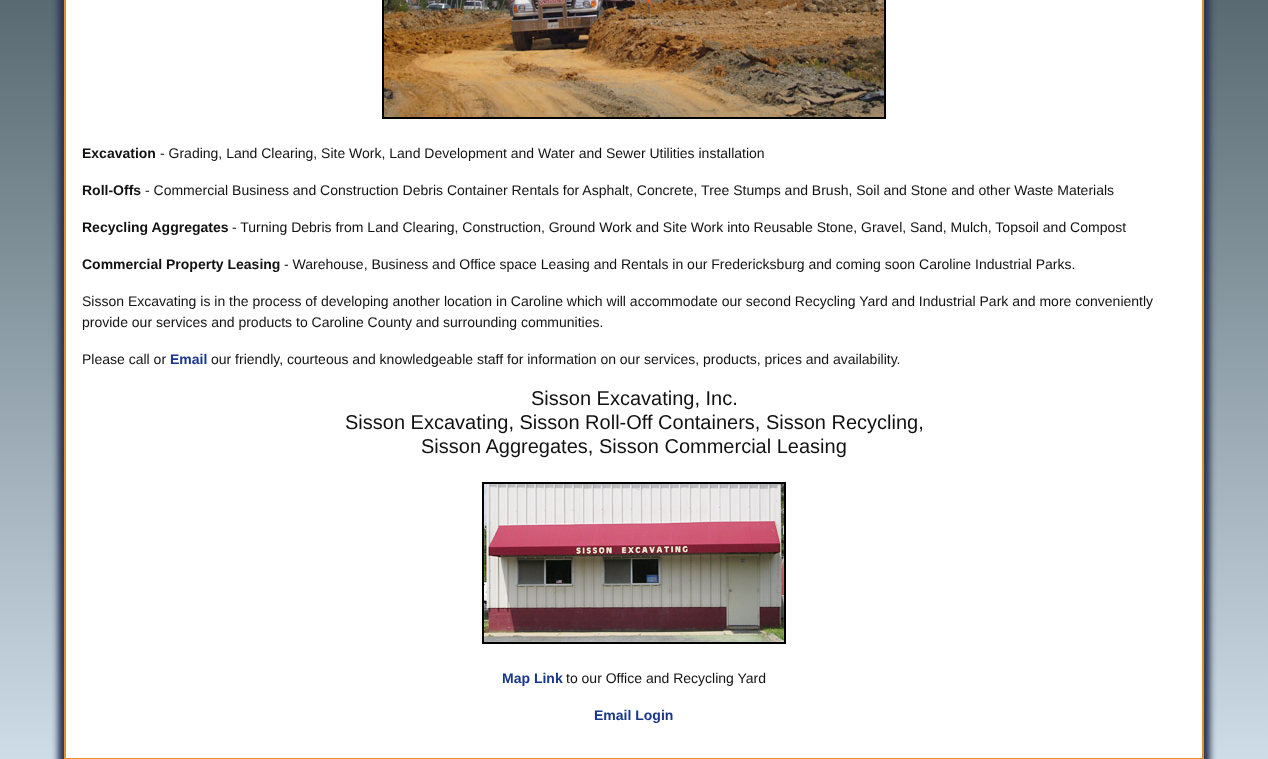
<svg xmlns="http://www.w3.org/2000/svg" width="1268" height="759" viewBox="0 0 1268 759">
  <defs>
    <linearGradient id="g1" gradientUnits="userSpaceOnUse" x1="634" y1="0" x2="634" y2="759"><stop offset="0" stop-color="#596a72"/><stop offset="1" stop-color="#cedce7"/></linearGradient>
    <filter id="blur1" x="-50%" y="-200%" width="200%" height="500%"><feGaussianBlur stdDeviation="3"/></filter>
  </defs>
  <rect width="100%" height="100%" fill="#ffffff"/>
  <rect x="0" y="0" width="1268" height="759" fill="url(#g1)"/>
  <rect x="58" y="-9" width="1152" height="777" fill="#2c3653" filter="url(#blur1)"/>
  <rect x="65" y="-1" width="1138" height="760" fill="#ffffff" stroke="#e2902b" stroke-width="2"/>
  <rect x="383" y="-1" width="502" height="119" fill="none" stroke="#000000" stroke-width="2"/>
  <image x="384" y="0" width="500" height="117" href="img1.png"/>
  <text x="82" y="158" font-family="Liberation Sans" font-size="14" font-weight="bold" fill="#111111">Excavation</text>
  <text x="160" y="158" font-family="Liberation Sans" font-size="14" fill="#111111">- Grading, Land Clearing, Site Work, Land Development and Water and Sewer Utilities installation</text>
  <text x="82" y="195" font-family="Liberation Sans" font-size="14" font-weight="bold" fill="#111111">Roll-Offs</text>
  <text x="145" y="195" font-family="Liberation Sans" font-size="14" fill="#111111">- Commercial Business and Construction Debris Container Rentals for Asphalt, Concrete, Tree Stumps and Brush, Soil and Stone and other Waste Materials</text>
  <text x="82" y="232" font-family="Liberation Sans" font-size="14" font-weight="bold" fill="#111111">Recycling Aggregates</text>
  <text x="232" y="232" font-family="Liberation Sans" font-size="14" fill="#111111">- Turning Debris from Land Clearing, Construction, Ground Work and Site Work into Reusable Stone, Gravel, Sand, Mulch, Topsoil and Compost</text>
  <text x="82" y="269" font-family="Liberation Sans" font-size="14" font-weight="bold" fill="#111111">Commercial Property Leasing</text>
  <text x="284" y="269" font-family="Liberation Sans" font-size="14" fill="#111111">- Warehouse, Business and Office space Leasing and Rentals in our Fredericksburg and coming soon Caroline Industrial Parks.</text>
  <text x="82" y="306" font-family="Liberation Sans" font-size="14" fill="#111111">Sisson Excavating is in the process of developing another location in Caroline which will accommodate our second Recycling Yard and Industrial Park and more conveniently</text>
  <text x="82" y="327" font-family="Liberation Sans" font-size="14" fill="#111111">provide our services and products to Caroline County and surrounding communities.</text>
  <text x="82" y="364" font-family="Liberation Sans" font-size="14" fill="#111111">Please call or</text>
  <text x="170" y="364" font-family="Liberation Sans" font-size="14" font-weight="bold" fill="#18368b">Email</text>
  <text x="211" y="364" font-family="Liberation Sans" font-size="14" fill="#111111">our friendly, courteous and knowledgeable staff for information on our services, products, prices and availability.</text>
  <text x="531" y="405" font-family="Liberation Sans" font-size="20" fill="#111111">Sisson Excavating, Inc.</text>
  <text x="345" y="429" font-family="Liberation Sans" font-size="20" fill="#111111">Sisson Excavating, Sisson Roll-Off Containers, Sisson Recycling,</text>
  <text x="421" y="453" font-family="Liberation Sans" font-size="20" fill="#111111">Sisson Aggregates, Sisson Commercial Leasing</text>
  <rect x="483" y="483" width="302" height="160" fill="none" stroke="#000000" stroke-width="2"/>
  <image x="484" y="484" width="300" height="158" href="img2.png"/>
  <text x="502" y="683" font-family="Liberation Sans" font-size="14" font-weight="bold" fill="#18368b">Map Link</text>
  <text x="566" y="683" font-family="Liberation Sans" font-size="14" fill="#111111">to our Office and Recycling Yard</text>
  <text x="594" y="720" font-family="Liberation Sans" font-size="14" font-weight="bold" fill="#18368b">Email Login</text>
</svg>
